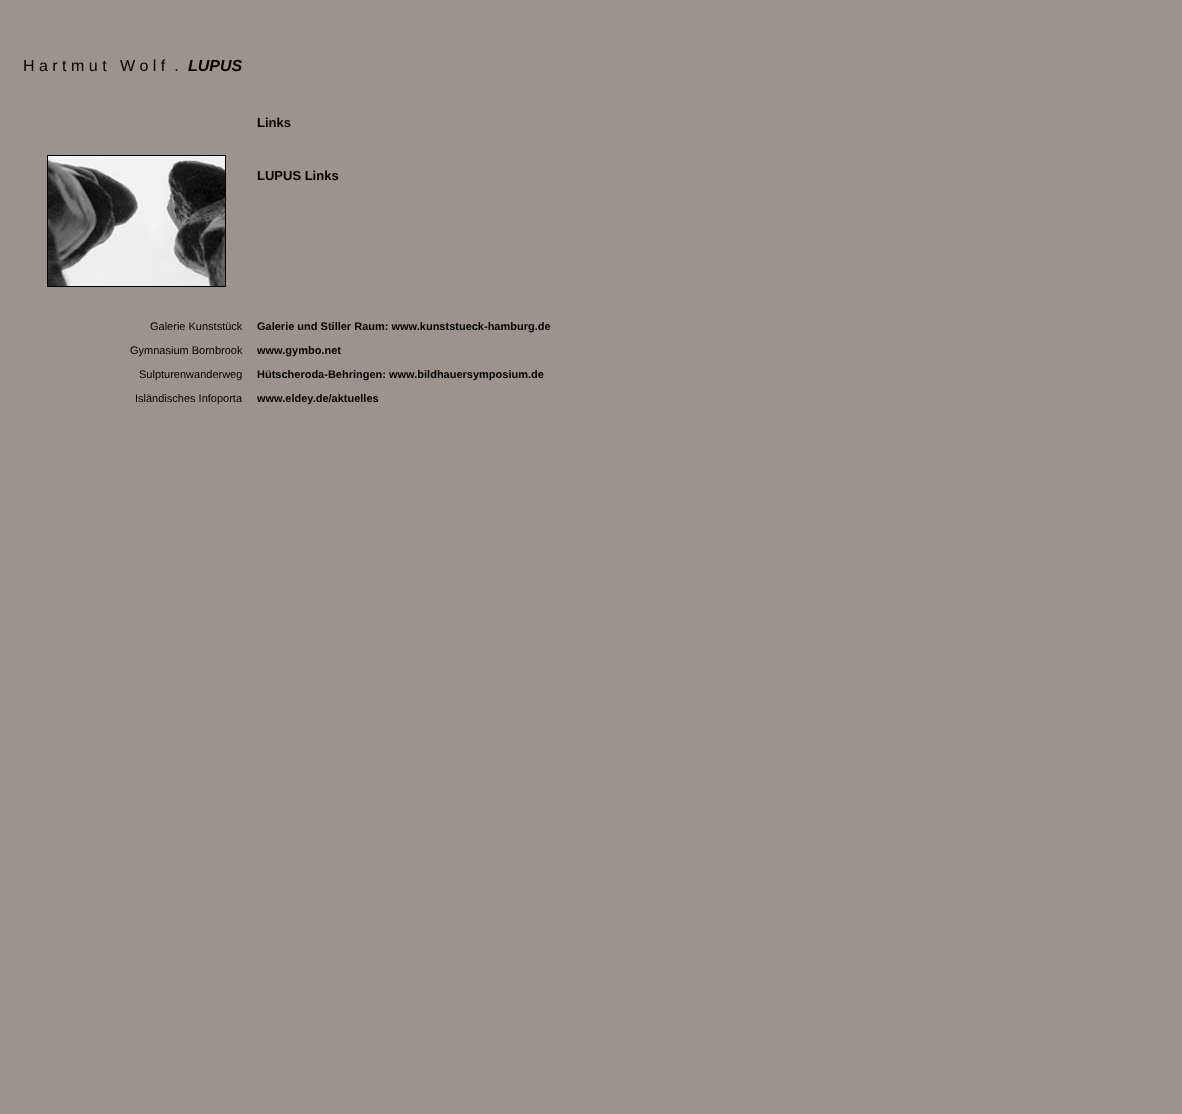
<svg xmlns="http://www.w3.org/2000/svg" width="1182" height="1114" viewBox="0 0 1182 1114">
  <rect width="100%" height="100%" fill="#9c948c"/>
  <text x="23" y="71" font-family="Liberation Sans" font-size="16" fill="#000000" xml:space="preserve">H a r t m u t   W o l f  .</text>
  <text x="188" y="71" font-family="Liberation Sans" font-size="16" font-weight="bold" font-style="italic" fill="#000000">LUPUS</text>
  <text x="257" y="127" font-family="Liberation Sans" font-size="13" font-weight="bold" fill="#000000">Links</text>
  <rect x="47.5" y="155.5" width="178" height="131" fill="none" stroke="#000000"/>
  <image x="48" y="156" width="177" height="130" href="img1.png"/>
  <text x="257" y="180" font-family="Liberation Sans" font-size="13" font-weight="bold" fill="#000000">LUPUS Links</text>
  <text x="150" y="330" font-family="Liberation Sans" font-size="11" fill="#000000">Galerie Kunststück</text>
  <text x="257" y="330" font-family="Liberation Sans" font-size="11" font-weight="bold" fill="#000000">Galerie und Stiller Raum: www.kunststueck-hamburg.de</text>
  <text x="130" y="354" font-family="Liberation Sans" font-size="11" fill="#000000">Gymnasium Bornbrook</text>
  <text x="257" y="354" font-family="Liberation Sans" font-size="11" font-weight="bold" fill="#000000">www.gymbo.net</text>
  <text x="139" y="378" font-family="Liberation Sans" font-size="11" fill="#000000">Sulpturenwanderweg</text>
  <text x="257" y="378" font-family="Liberation Sans" font-size="11" font-weight="bold" fill="#000000">Hütscheroda-Behringen: www.bildhauersymposium.de</text>
  <text x="135" y="402" font-family="Liberation Sans" font-size="11" fill="#000000">Isländisches Infoporta</text>
  <text x="257" y="402" font-family="Liberation Sans" font-size="11" font-weight="bold" fill="#000000">www.eldey.de/aktuelles</text>
</svg>
